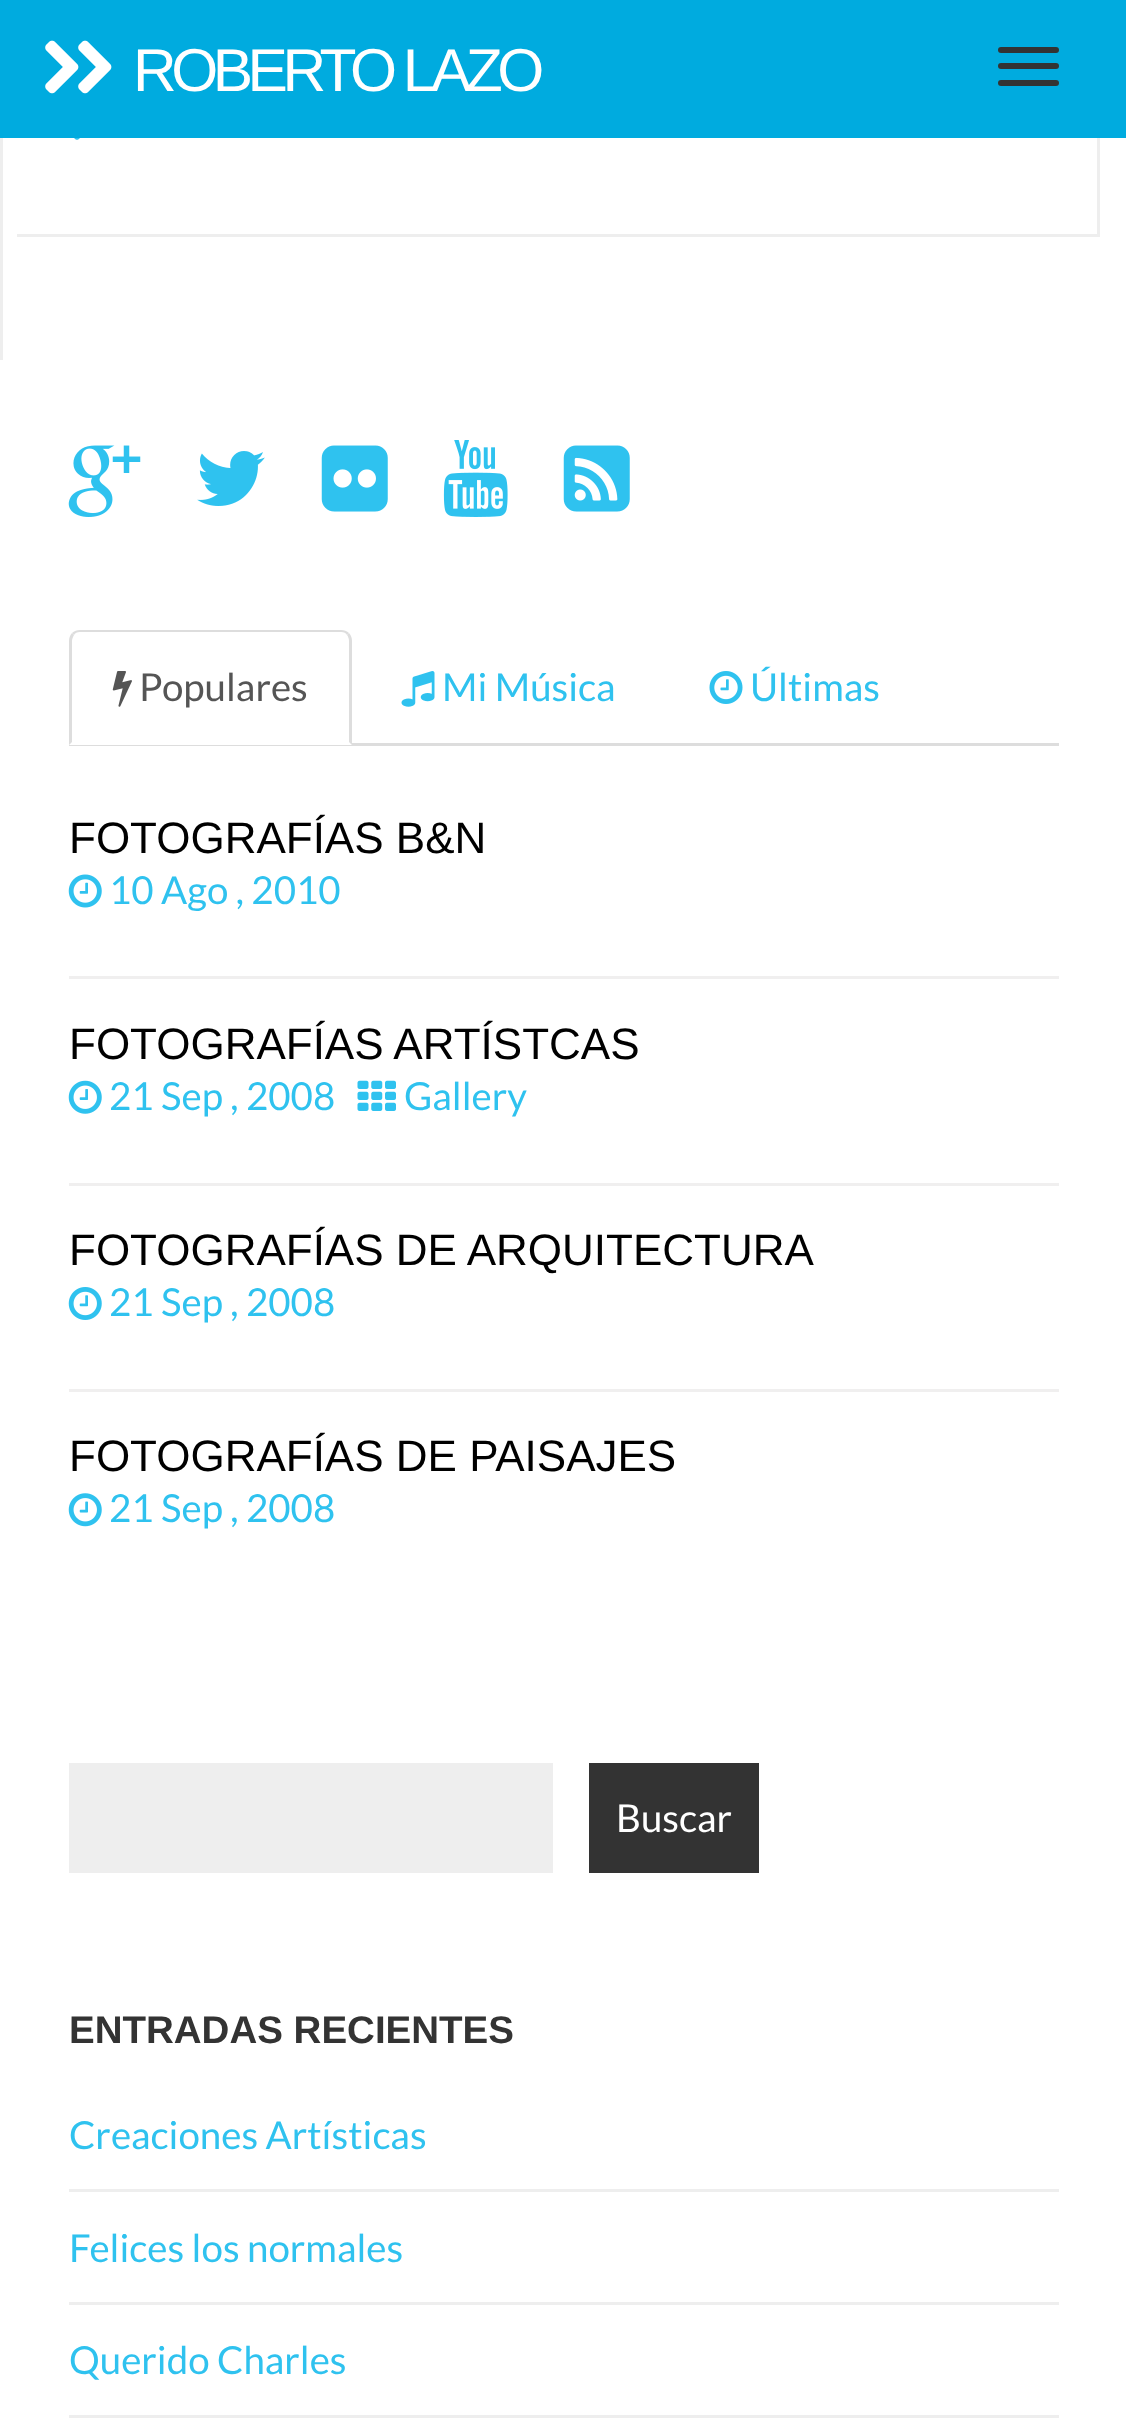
<svg xmlns="http://www.w3.org/2000/svg" width="1126" height="2432" viewBox="0 0 1126 2432">
  <rect width="100%" height="100%" fill="#ffffff"/>
  <rect x="0" y="0" width="1126" height="138" fill="#00abdf"/>
  <image x="45" y="40" width="34" height="54" href="img1.png"/>
  <image x="78" y="40" width="34" height="54" href="img2.png"/>
  <text x="133" y="91" font-family="Liberation Sans" font-size="60.5" letter-spacing="-5.5" fill="#ffffff">ROBERTO LAZO</text>
  <rect x="998" y="47" width="61" height="6" rx="3" fill="#333333"/>
  <rect x="998" y="63" width="61" height="6" rx="3" fill="#333333"/>
  <rect x="998" y="80" width="61" height="6" rx="3" fill="#333333"/>
  <rect x="0" y="138" width="3" height="222" fill="#eeeeee"/>
  <rect x="1097" y="138" width="3" height="99" fill="#eeeeee"/>
  <rect x="17" y="234" width="1083" height="3" fill="#eeeeee"/>
  <image x="74" y="138" width="6" height="2" href="img3.png"/>
  <image x="68" y="445" width="73" height="72" href="img4.png"/>
  <image x="197" y="451" width="68" height="55" href="img5.png"/>
  <image x="321" y="445" width="67" height="67" href="img6.png"/>
  <image x="443" y="440" width="65" height="77" href="img7.png"/>
  <image x="563" y="445" width="67" height="67" href="img8.png"/>
  <rect x="69" y="743" width="990" height="3" fill="#dddddd"/>
  <path d="M80 630H341C347 630 352 635 352 641V745H69V641C69 635 74 630 80 630Z" fill="#ffffff"/>
  <path d="M80 630C77 630 74 631 72 633L74 635C75 633 77 632 80 632H341C344 632 346 633 347 635L349 633C347 631 344 630 341 630Z" fill="#dddddd"/>
  <path d="M349 633C351 635 352 638 352 641V745L349 742V641C349 639 348 636 347 635Z" fill="#dddddd"/>
  <path d="M72 633C70 635 69 638 69 641V745L72 742V641C72 639 73 637 74 635Z" fill="#dddddd"/>
  <image x="112" y="671" width="20" height="36" href="img9.png"/>
  <text x="139" y="701" font-family="Lato" font-size="38.5" fill="#555555">Populares</text>
  <image x="401" y="671" width="34" height="36" href="img10.png"/>
  <text x="442" y="701" font-family="Lato" font-size="38.5" fill="#2fc2ef">Mi Música</text>
  <image x="709" y="671" width="34" height="33" href="img11.png"/>
  <text x="750" y="701" font-family="Lato" font-size="38.5" fill="#2fc2ef">Últimas</text>
  <rect x="69" y="976" width="990" height="3" fill="#f0efef"/>
  <text x="69" y="853" font-family="Liberation Sans" font-size="44" fill="#000000">FOTOGRAFÍAS B&amp;N</text>
  <image x="68" y="874" width="34" height="34" href="img12.png"/>
  <text x="109" y="904" font-family="Lato" font-size="38.5" fill="#2fc2ef">10 Ago , 2010</text>
  <rect x="69" y="1183" width="990" height="3" fill="#f0efef"/>
  <text x="69" y="1059" font-family="Liberation Sans" font-size="44" fill="#000000">FOTOGRAFÍAS ARTÍSTCAS</text>
  <image x="68" y="1080" width="34" height="34" href="img13.png"/>
  <text x="109" y="1110" font-family="Lato" font-size="38.5" fill="#2fc2ef">21 Sep , 2008</text>
  <image x="357" y="1080" width="39" height="31" href="img14.png"/>
  <text x="404" y="1110" font-family="Lato" font-size="38.5" fill="#2fc2ef">Gallery</text>
  <rect x="69" y="1389" width="990" height="3" fill="#f0efef"/>
  <text x="69" y="1265" font-family="Liberation Sans" font-size="44" fill="#000000">FOTOGRAFÍAS DE ARQUITECTURA</text>
  <image x="68" y="1287" width="34" height="33" href="img15.png"/>
  <text x="109" y="1316" font-family="Lato" font-size="38.5" fill="#2fc2ef">21 Sep , 2008</text>
  <text x="69" y="1471" font-family="Liberation Sans" font-size="44" fill="#000000">FOTOGRAFÍAS DE PAISAJES</text>
  <image x="68" y="1493" width="34" height="34" href="img16.png"/>
  <text x="109" y="1522" font-family="Lato" font-size="38.5" fill="#2fc2ef">21 Sep , 2008</text>
  <rect x="69" y="1763" width="484" height="110" fill="#eeeeee"/>
  <rect x="589" y="1763" width="170" height="110" fill="#333333"/>
  <text x="616" y="1832" font-family="Lato" font-size="38.5" fill="#ffffff">Buscar</text>
  <text x="69" y="2043" font-family="Liberation Sans" font-size="38.5" font-weight="bold" fill="#333333">ENTRADAS RECIENTES</text>
  <rect x="69" y="2189" width="990" height="3" fill="#eeeeee"/>
  <text x="69" y="2149" font-family="Lato" font-size="38.5" fill="#2fc2ef">Creaciones Artísticas</text>
  <rect x="69" y="2302" width="990" height="3" fill="#eeeeee"/>
  <text x="69" y="2262" font-family="Lato" font-size="38.5" fill="#2fc2ef">Felices los normales</text>
  <rect x="69" y="2415" width="990" height="3" fill="#eeeeee"/>
  <text x="69" y="2374" font-family="Lato" font-size="38.5" fill="#2fc2ef">Querido Charles</text>
</svg>
